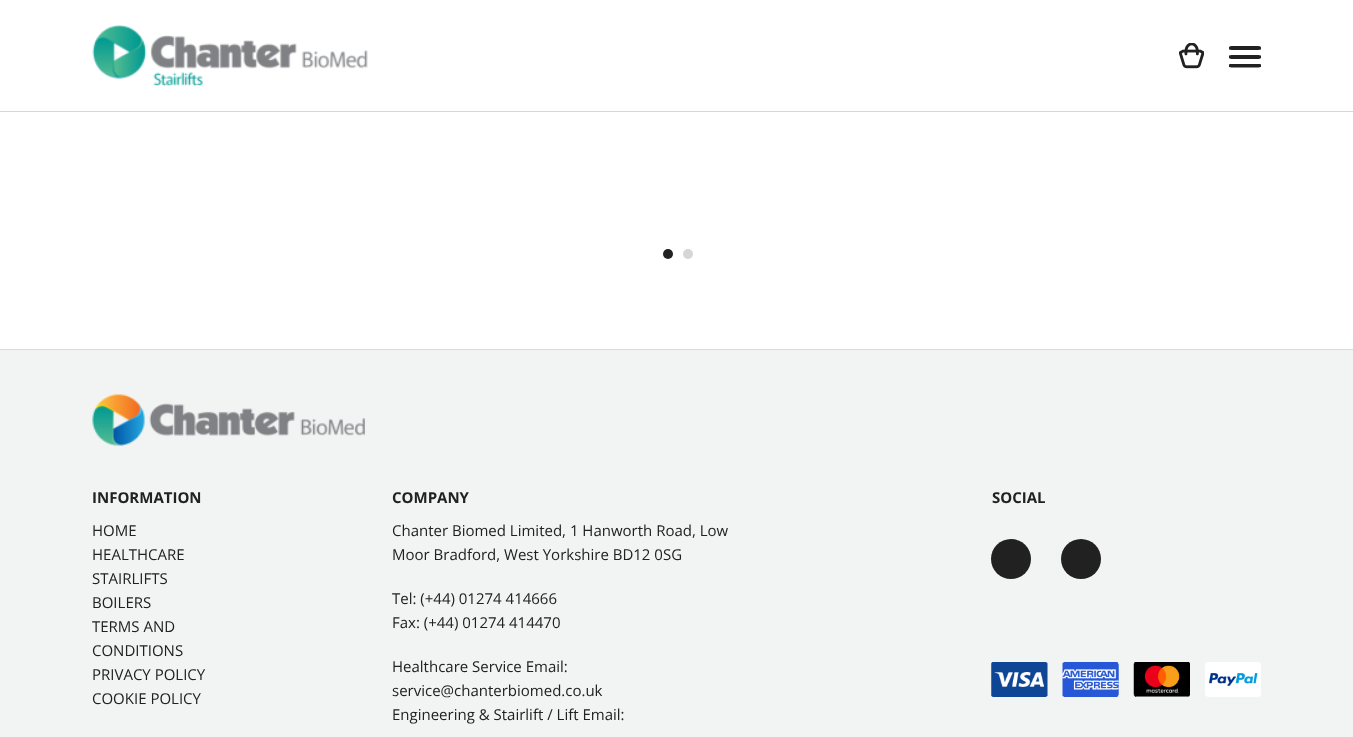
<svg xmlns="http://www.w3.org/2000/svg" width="1353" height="737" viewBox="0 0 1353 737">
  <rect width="100%" height="100%" fill="#ffffff"/>
  <rect x="0" y="111" width="1353" height="1" fill="#d8d5d5"/>
  <image x="92" y="25" width="276" height="62" href="img1.png"/>
  <image x="1179" y="43" width="25" height="26" href="img2.png"/>
  <path d="M1233.5 46H1256.5C1259 46 1261 46.5 1261 47V49.5C1261 49.5 1259 50 1256.5 50H1233.5C1231 50 1229 49.5 1229 49.5V47C1229 46.5 1231 46 1233.5 46ZM1233.5 55H1256.5C1259 55 1261 55.5 1261 55.5V58C1261 58.5 1259 59 1256.5 59H1233.5C1231 59 1229 58.5 1229 58V55.5C1229 55.5 1231 55 1233.5 55ZM1233.5 64H1256.5C1259 64 1261 64 1261 64.5V67C1261 67 1259 67.5 1256.5 67.5H1233.5C1231 67.5 1229 67 1229 67V64.5C1229 64 1231 64 1233.5 64Z" fill="#212121"/>
  <circle cx="668" cy="254" r="5" fill="#212121"/>
  <circle cx="688" cy="254" r="5" fill="#d8d5d5"/>
  <rect x="0" y="350" width="1353" height="387" fill="#f2f3f3"/>
  <rect x="0" y="349" width="1353" height="1" fill="#dbdbdb"/>
  <image x="92" y="394" width="273" height="52" href="img3.png"/>
  <text x="92" y="503" font-family="Open Sans" font-size="15" font-weight="bold" fill="#212121">INFORMATION</text>
  <text x="92" y="536" font-family="Open Sans" font-size="15" fill="#212121">HOME</text>
  <text x="92" y="560" font-family="Open Sans" font-size="15" fill="#212121">HEALTHCARE</text>
  <text x="92" y="584" font-family="Open Sans" font-size="15" fill="#212121">STAIRLIFTS</text>
  <text x="92" y="608" font-family="Open Sans" font-size="15" fill="#212121">BOILERS</text>
  <text x="92" y="632" font-family="Open Sans" font-size="15" fill="#212121">TERMS AND</text>
  <text x="92" y="656" font-family="Open Sans" font-size="15" fill="#212121">CONDITIONS</text>
  <text x="92" y="680" font-family="Open Sans" font-size="15" fill="#212121">PRIVACY POLICY</text>
  <text x="92" y="704" font-family="Open Sans" font-size="15" fill="#212121">COOKIE POLICY</text>
  <text x="392" y="503" font-family="Open Sans" font-size="15" font-weight="bold" fill="#212121">COMPANY</text>
  <text x="392" y="536" font-family="Open Sans" font-size="15" fill="#212121">Chanter Biomed Limited, 1 Hanworth Road, Low</text>
  <text x="392" y="560" font-family="Open Sans" font-size="15" fill="#212121">Moor Bradford, West Yorkshire BD12 0SG</text>
  <text x="392" y="604" font-family="Open Sans" font-size="15" fill="#212121">Tel: (+44) 01274 414666</text>
  <text x="392" y="628" font-family="Open Sans" font-size="15" fill="#212121">Fax: (+44) 01274 414470</text>
  <text x="392" y="672" font-family="Open Sans" font-size="15" fill="#212121">Healthcare Service Email:</text>
  <text x="392" y="696" font-family="Open Sans" font-size="15" fill="#212121">service@chanterbiomed.co.uk</text>
  <text x="392" y="720" font-family="Open Sans" font-size="15" fill="#212121">Engineering &amp; Stairlift / Lift Email:</text>
  <text x="992" y="503" font-family="Open Sans" font-size="15" font-weight="bold" fill="#212121">SOCIAL</text>
  <circle cx="1011" cy="559" r="20" fill="#212121"/>
  <circle cx="1081" cy="559" r="20" fill="#212121"/>
  <image x="991" y="662" width="57" height="35" href="img4.png"/>
  <image x="1062" y="662" width="57" height="35" href="img5.png"/>
  <image x="1133" y="662" width="57" height="35" href="img6.png"/>
  <image x="1205" y="662" width="56" height="35" href="img7.png"/>
</svg>
